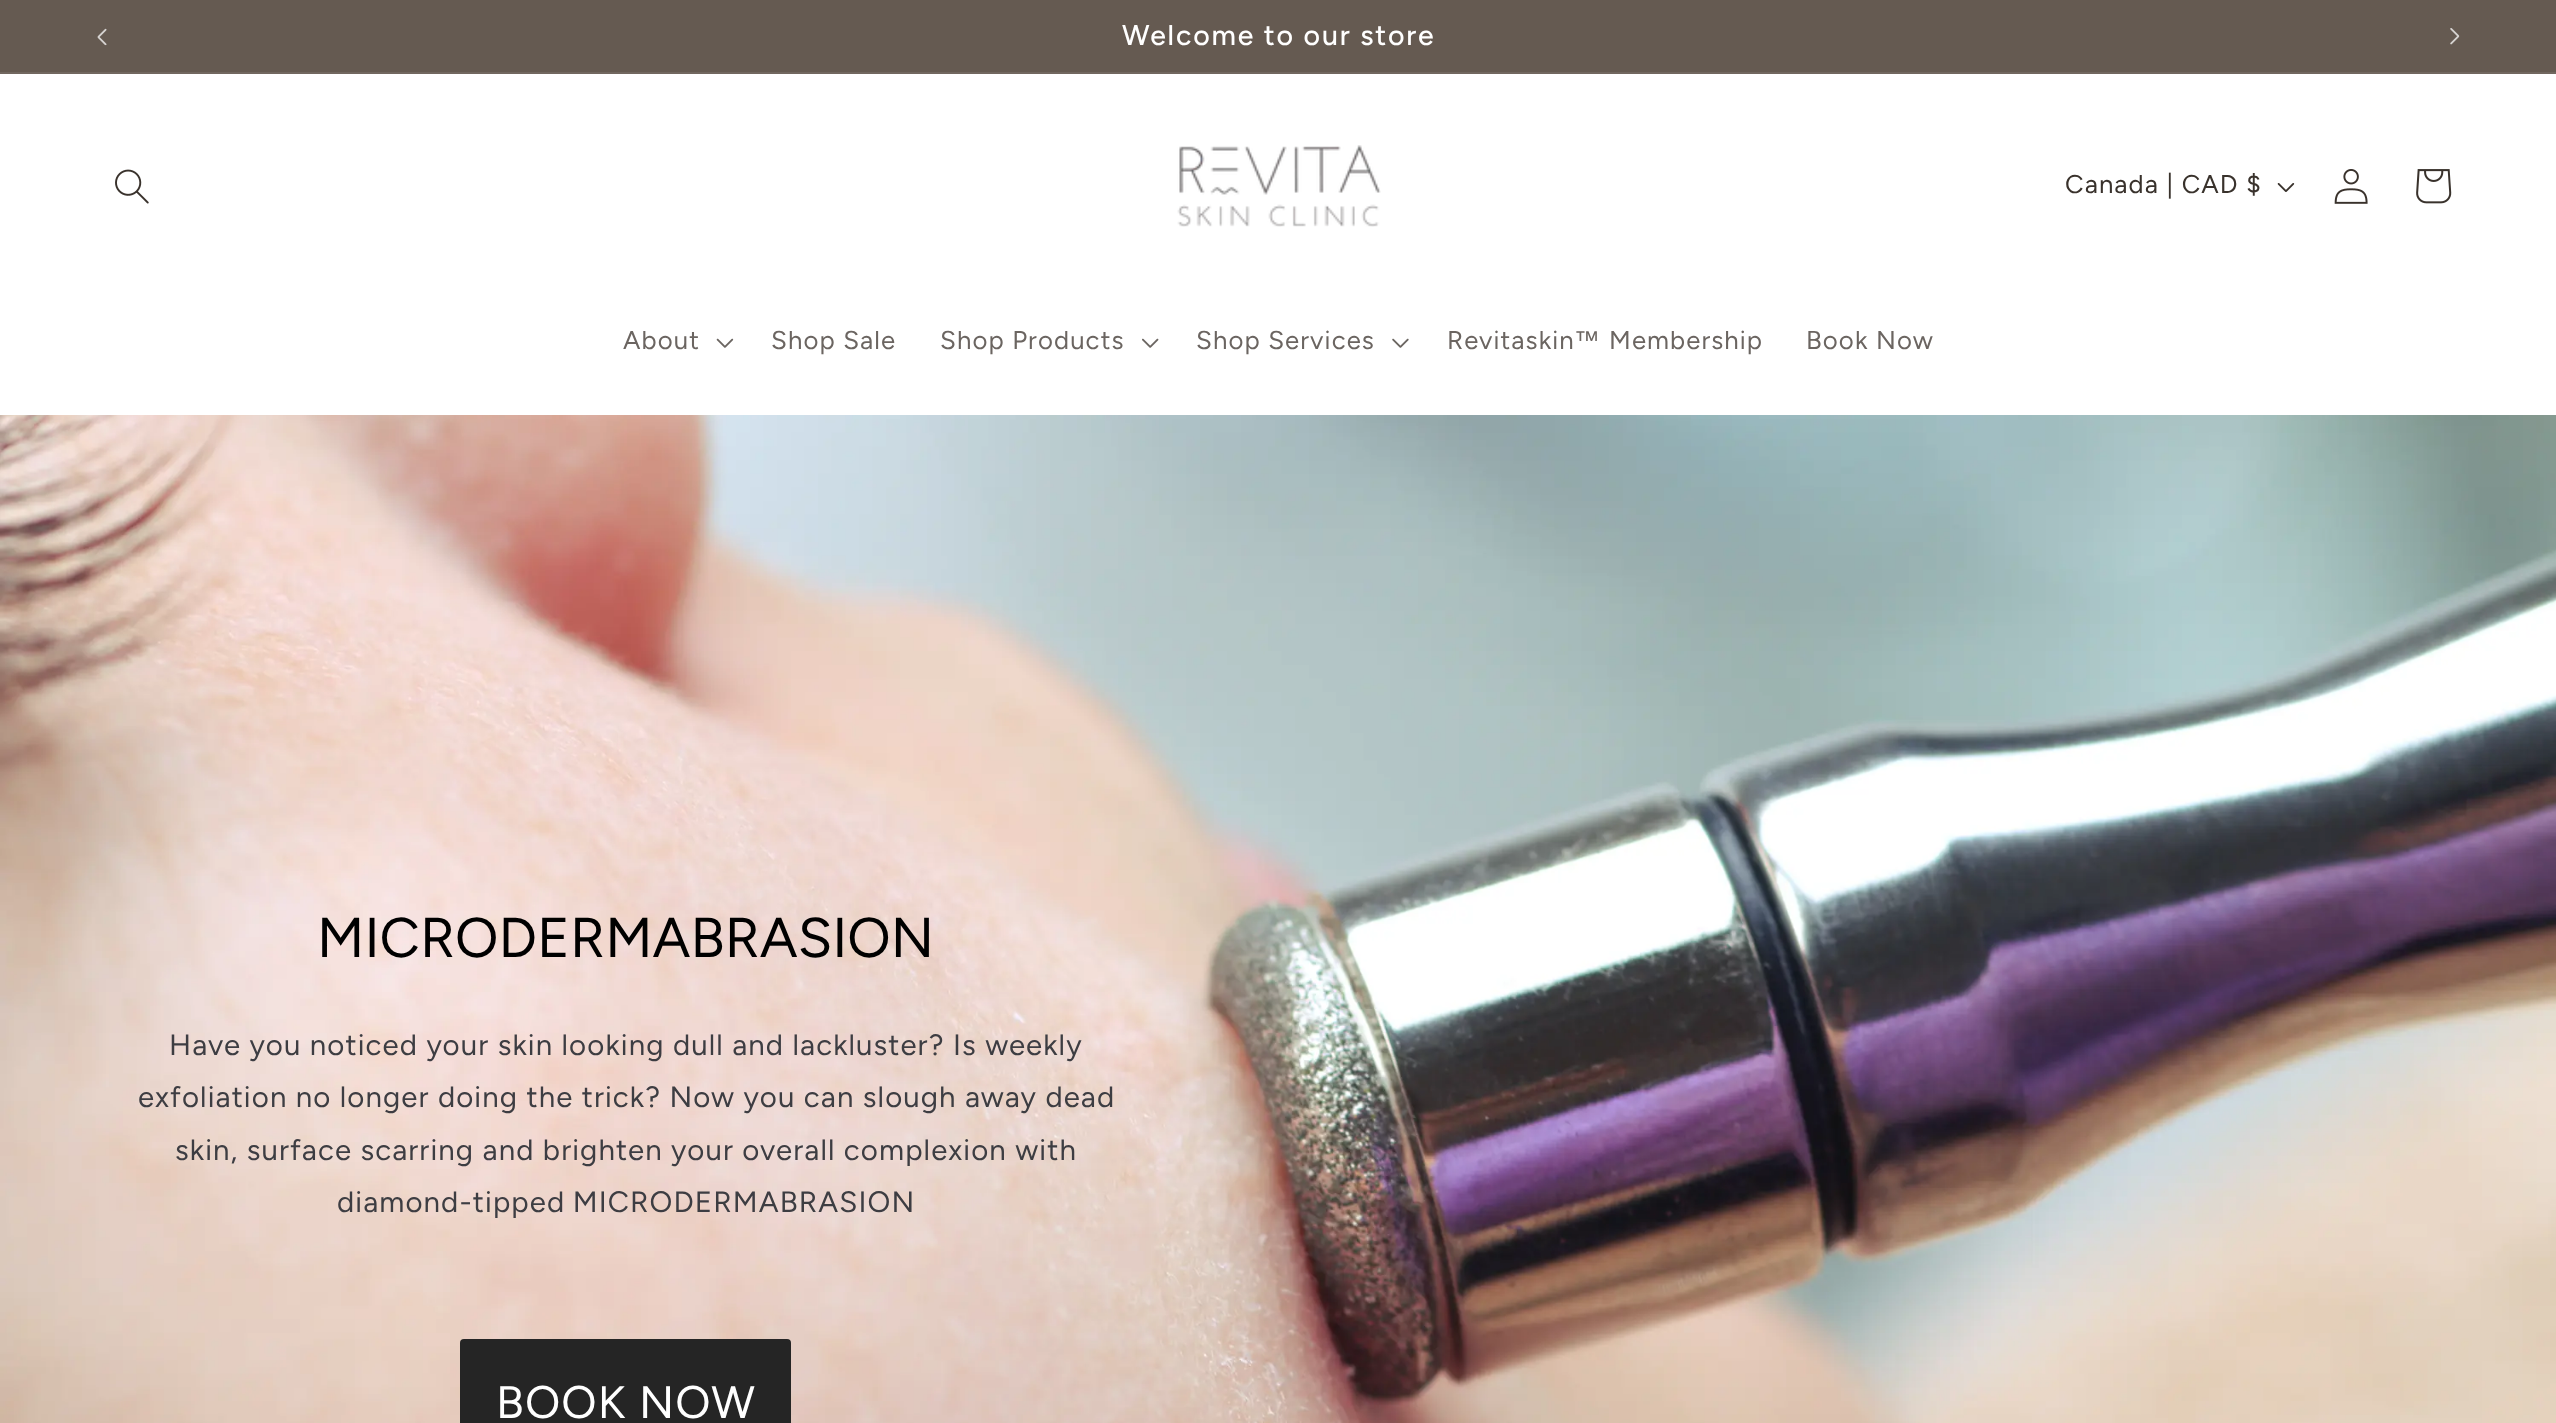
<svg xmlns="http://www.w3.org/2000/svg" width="2556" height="1423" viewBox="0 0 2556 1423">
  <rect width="100%" height="100%" fill="#ffffff"/>
  <rect x="0" y="0" width="2556" height="72" fill="#655a51"/>
  <rect x="0" y="72" width="2556" height="2" fill="#71675f"/>
  <image x="97" y="28" width="10" height="18" href="img1.png"/>
  <text x="1122" y="45" font-family="Figtree" font-size="28.5" font-weight="500" letter-spacing="1.8" fill="#ffffff">Welcome to our store</text>
  <image x="2450" y="28" width="10" height="17" href="img2.png"/>
  <image x="115" y="169" width="34" height="35" href="img3.png"/>
  <image x="1177" y="145" width="204" height="82" href="img4.png"/>
  <text x="2065" y="193" font-family="Figtree" font-size="25.75" letter-spacing="1.1" fill="#39322c">Canada | CAD $</text>
  <image x="2277" y="183" width="18" height="9" href="img5.png"/>
  <image x="2334" y="169" width="34" height="35" href="img6.png"/>
  <image x="2416" y="169" width="36" height="35" href="img7.png"/>
  <text x="623" y="349" font-family="Figtree" font-size="25.75" letter-spacing="1.1" fill="#6b6561">About</text>
  <image x="716" y="338" width="18" height="10" href="img8.png"/>
  <text x="771" y="349" font-family="Figtree" font-size="25.75" letter-spacing="1.1" fill="#6b6561">Shop Sale</text>
  <text x="940" y="349" font-family="Figtree" font-size="25.75" letter-spacing="1.1" fill="#6b6561">Shop Products</text>
  <image x="1142" y="338" width="17" height="10" href="img9.png"/>
  <text x="1196" y="349" font-family="Figtree" font-size="25.75" letter-spacing="1.1" fill="#6b6561">Shop Services</text>
  <image x="1392" y="338" width="17" height="10" href="img10.png"/>
  <text x="1447" y="349" font-family="Figtree" font-size="25.75" letter-spacing="1.1" fill="#6b6561">Revitaskin</text>
  <text x="1574" y="349" font-family="Liberation Sans" font-size="25.75" letter-spacing="1.1" fill="#6b6561">™</text>
  <text x="1609" y="349" font-family="Figtree" font-size="25.75" letter-spacing="1.1" fill="#6b6561">Membership</text>
  <text x="1806" y="349" font-family="Figtree" font-size="25.75" letter-spacing="1.1" fill="#6b6561">Book Now</text>
  <image x="0" y="415" width="2556" height="1008" href="img11.png"/>
  <text x="317" y="957" font-family="Figtree" font-size="56" fill="#000000">MICRODERMABRASION</text>
  <text x="169" y="1055" font-family="Figtree" font-size="29.4" letter-spacing="1.1" fill="#3d3d42">Have you noticed your skin looking dull and lackluster? Is weekly</text>
  <text x="138" y="1107" font-family="Figtree" font-size="29.4" letter-spacing="1.1" fill="#3d3d42">exfoliation no longer doing the trick? Now you can slough away dead</text>
  <text x="175" y="1160" font-family="Figtree" font-size="29.4" letter-spacing="1.1" fill="#3d3d42">skin, surface scarring and brighten your overall complexion with</text>
  <text x="337" y="1212" word-spacing="-1" font-family="Figtree" font-size="29.4" letter-spacing="1.1" fill="#3d3d42">diamond-tipped MICRODERMABRASION</text>
  <rect x="460" y="1339" width="331" height="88" rx="4" fill="#252525"/>
  <text x="496" y="1418" font-family="Figtree" font-size="45.5" letter-spacing="1.1" fill="#ffffff">BOOK NOW</text>
</svg>
